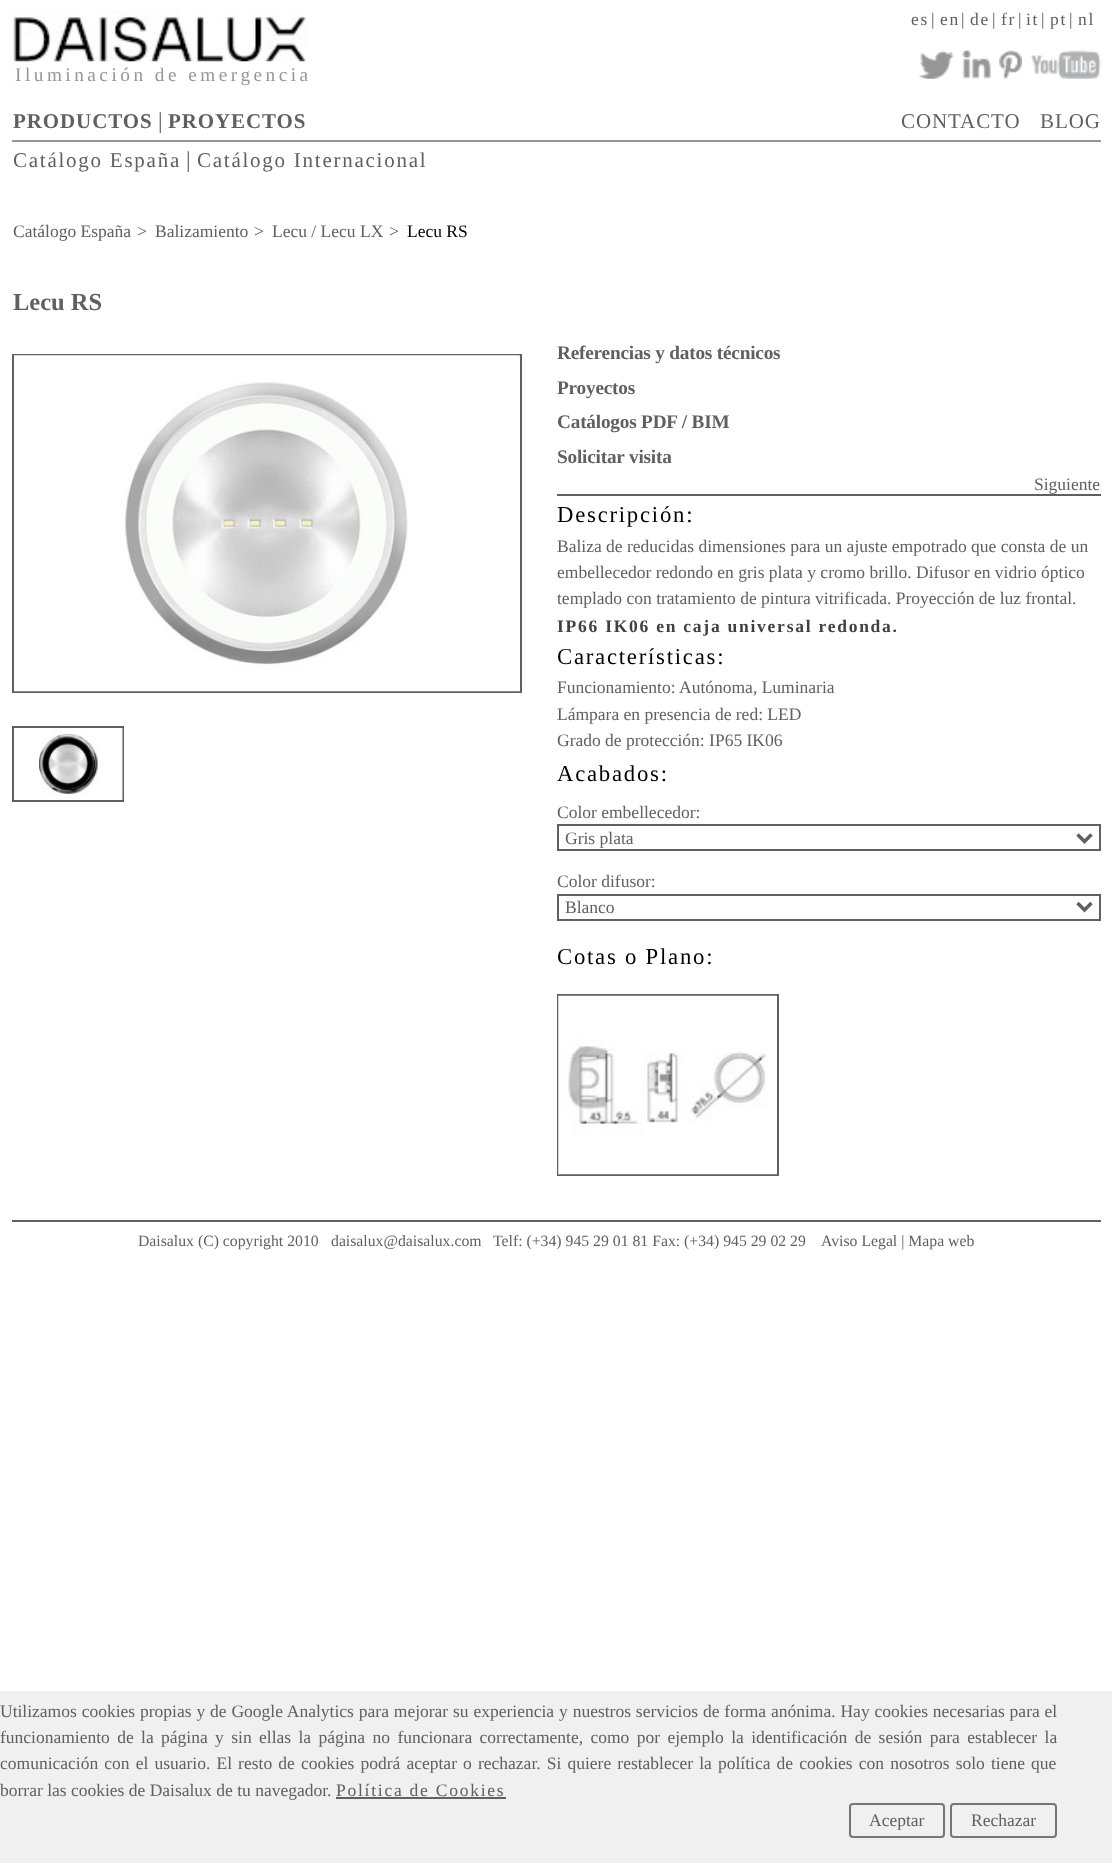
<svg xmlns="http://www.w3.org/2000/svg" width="1112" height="1863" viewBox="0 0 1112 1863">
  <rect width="100%" height="100%" fill="#ffffff"/>
  <text x="911" y="25" font-family="Liberation Serif" font-size="17.5" letter-spacing="1.75" fill="#606060">es</text>
  <text x="931" y="25" font-family="Liberation Serif" font-size="17.5" letter-spacing="1.75" fill="#606060">|</text>
  <text x="940" y="25" font-family="Liberation Serif" font-size="17.5" letter-spacing="1.75" fill="#606060">en</text>
  <text x="961" y="25" font-family="Liberation Serif" font-size="17.5" letter-spacing="1.75" fill="#606060">|</text>
  <text x="970" y="25" font-family="Liberation Serif" font-size="17.5" letter-spacing="1.75" fill="#606060">de</text>
  <text x="992" y="25" font-family="Liberation Serif" font-size="17.5" letter-spacing="1.75" fill="#606060">|</text>
  <text x="1001" y="25" font-family="Liberation Serif" font-size="17.5" letter-spacing="1.75" fill="#606060">fr</text>
  <text x="1018" y="25" font-family="Liberation Serif" font-size="17.5" letter-spacing="1.75" fill="#606060">|</text>
  <text x="1026" y="25" font-family="Liberation Serif" font-size="17.5" letter-spacing="1.75" fill="#606060">it</text>
  <text x="1041" y="25" font-family="Liberation Serif" font-size="17.5" letter-spacing="1.75" fill="#606060">|</text>
  <text x="1050" y="25" font-family="Liberation Serif" font-size="17.5" letter-spacing="1.75" fill="#606060">pt</text>
  <text x="1069" y="25" font-family="Liberation Serif" font-size="17.5" letter-spacing="1.75" fill="#606060">|</text>
  <text x="1078" y="25" font-family="Liberation Serif" font-size="17.5" letter-spacing="1.75" fill="#606060">nl</text>
  <image x="12" y="9" width="295" height="53" href="img1.png"/>
  <text x="15" y="81" font-family="Liberation Serif" font-size="19.25" letter-spacing="3.5" fill="#969696">Iluminación de emergencia</text>
  <image x="919" y="50" width="35" height="29" href="img2.png"/>
  <image x="962" y="50" width="29" height="29" href="img3.png"/>
  <image x="999" y="50" width="23" height="29" href="img4.png"/>
  <image x="1030" y="50" width="71" height="29" href="img5.png"/>
  <rect x="12" y="140" width="1089" height="2" fill="#9a9393"/>
  <text x="13" y="128" font-family="Liberation Serif" font-size="21" font-weight="bold" letter-spacing="0.9" fill="#606060">PRODUCTOS</text>
  <text x="158" y="128" font-family="Liberation Serif" font-size="22.75" fill="#606060">|</text>
  <text x="168" y="128" font-family="Liberation Serif" font-size="21" font-weight="bold" letter-spacing="0.9" fill="#606060">PROYECTOS</text>
  <text x="901" y="128" font-family="Liberation Serif" font-size="21" letter-spacing="0.9" fill="#606060">CONTACTO</text>
  <text x="1040" y="128" font-family="Liberation Serif" font-size="21" letter-spacing="0.9" fill="#606060">BLOG</text>
  <text x="13" y="167" font-family="Liberation Serif" font-size="21" letter-spacing="1.75" fill="#606060">Catálogo España</text>
  <text x="186" y="167" font-family="Liberation Serif" font-size="22.75" fill="#606060">|</text>
  <text x="197" y="167" font-family="Liberation Serif" font-size="21" letter-spacing="1.75" fill="#606060">Catálogo Internacional</text>
  <text x="13" y="237" font-family="Liberation Serif" font-size="17.5" fill="#606060">Catálogo España</text>
  <text x="137" y="237" font-family="Liberation Serif" font-size="17.5" letter-spacing="1.75" fill="#606060">&gt;</text>
  <text x="155" y="237" font-family="Liberation Serif" font-size="17.5" fill="#606060">Balizamiento</text>
  <text x="254" y="237" font-family="Liberation Serif" font-size="17.5" letter-spacing="1.75" fill="#606060">&gt;</text>
  <text x="272" y="237" font-family="Liberation Serif" font-size="17.5" fill="#606060">Lecu / Lecu LX</text>
  <text x="389" y="237" font-family="Liberation Serif" font-size="17.5" letter-spacing="1.75" fill="#606060">&gt;</text>
  <text x="407" y="237" font-family="Liberation Serif" font-size="17.5" fill="#000000">Lecu RS</text>
  <text x="13" y="310" font-family="Liberation Serif" font-size="24.5" font-weight="bold" fill="#606060">Lecu RS</text>
  <rect x="13" y="355" width="508" height="337" fill="none" stroke="#606060" stroke-width="2"/>
  <image x="14" y="355" width="506" height="337" href="img6.png"/>
  <rect x="13" y="727" width="110" height="74" fill="none" stroke="#606060" stroke-width="2"/>
  <image x="39" y="728" width="84" height="72" href="img7.png"/>
  <text x="557" y="359" font-family="Liberation Serif" font-size="19.25" font-weight="bold" letter-spacing="-0.2" fill="#606060">Referencias y datos técnicos</text>
  <text x="557" y="394" font-family="Liberation Serif" font-size="19.25" font-weight="bold" letter-spacing="-0.2" fill="#606060">Proyectos</text>
  <text x="557" y="428" font-family="Liberation Serif" font-size="19.25" font-weight="bold" letter-spacing="-0.2" fill="#606060">Catálogos PDF / BIM</text>
  <text x="557" y="463" font-family="Liberation Serif" font-size="19.25" font-weight="bold" letter-spacing="-0.2" fill="#606060">Solicitar visita</text>
  <rect x="557" y="494" width="544" height="2" fill="#606060"/>
  <text x="1034" y="490" font-family="Liberation Serif" font-size="17.5" fill="#606060">Siguiente</text>
  <text x="557" y="522" font-family="Liberation Serif" font-size="22.75" letter-spacing="1.75" fill="#000000">Descripción:</text>
  <text x="557" y="552" font-family="Liberation Serif" font-size="17.5" fill="#606060">Baliza de reducidas dimensiones para un ajuste empotrado que consta de un</text>
  <text x="557" y="578" font-family="Liberation Serif" font-size="17.5" fill="#606060">embellecedor redondo en gris plata y cromo brillo. Difusor en vidrio óptico</text>
  <text x="557" y="604" font-family="Liberation Serif" font-size="17.5" fill="#606060">templado con tratamiento de pintura vitrificada. Proyección de luz frontal.</text>
  <text x="557" y="632" font-family="Liberation Serif" font-size="17.5" font-weight="bold" letter-spacing="1.75" fill="#404040">IP66 IK06 en caja universal redonda.</text>
  <text x="557" y="664" font-family="Liberation Serif" font-size="22.75" letter-spacing="1.75" fill="#000000">Características:</text>
  <text x="557" y="693" font-family="Liberation Serif" font-size="17.5" fill="#606060">Funcionamiento: Autónoma, Luminaria</text>
  <text x="557" y="720" font-family="Liberation Serif" font-size="17.5" fill="#606060">Lámpara en presencia de red: LED</text>
  <text x="557" y="746" font-family="Liberation Serif" font-size="17.5" fill="#606060">Grado de protección: IP65 IK06</text>
  <text x="557" y="781" font-family="Liberation Serif" font-size="22.75" letter-spacing="1.75" fill="#000000">Acabados:</text>
  <text x="557" y="818" font-family="Liberation Serif" font-size="17.5" fill="#606060">Color embellecedor:</text>
  <rect x="558" y="825" width="542" height="25" fill="none" stroke="#606060" stroke-width="2"/>
  <path d="M1077.5 834.5L1084.5 841.5L1091.5 834.5" fill="none" stroke="#606060" stroke-width="3.5"/>
  <text x="565" y="844" font-family="Liberation Serif" font-size="17.5" fill="#606060">Gris plata</text>
  <text x="557" y="887" font-family="Liberation Serif" font-size="17.5" fill="#606060">Color difusor:</text>
  <rect x="558" y="895" width="542" height="25" fill="none" stroke="#606060" stroke-width="2"/>
  <path d="M1077.5 903L1084.5 910L1091.5 903" fill="none" stroke="#606060" stroke-width="3.5"/>
  <text x="565" y="913" font-family="Liberation Serif" font-size="17.5" fill="#606060">Blanco</text>
  <text x="557" y="964" font-family="Liberation Serif" font-size="22.75" letter-spacing="1.75" fill="#000000">Cotas o Plano:</text>
  <rect x="558" y="995" width="220" height="180" fill="none" stroke="#606060" stroke-width="2"/>
  <image x="558" y="995" width="219" height="180" href="img8.png"/>
  <rect x="12" y="1220" width="1089" height="2" fill="#606060"/>
  <text x="138" y="1246" font-family="Liberation Serif" font-size="15.75" fill="#606060">Daisalux (C) copyright 2010</text>
  <text x="331" y="1246" font-family="Liberation Serif" font-size="15.75" fill="#606060">daisalux@daisalux.com</text>
  <text x="493" y="1246" font-family="Liberation Serif" font-size="15.75" fill="#606060">Telf: (+34) 945 29 01 81 Fax: (+34) 945 29 02 29</text>
  <text x="821" y="1246" font-family="Liberation Serif" font-size="15.75" fill="#606060">Aviso Legal | Mapa web</text>
  <rect x="0" y="1691" width="1112" height="172" fill="#f0f0f0"/>
  <text x="0" y="1717" word-spacing="0.5" font-family="Liberation Serif" font-size="17.5" fill="#606060">Utilizamos cookies propias y de Google Analytics para mejorar su experiencia y nuestros servicios de forma anónima. Hay cookies necesarias para el</text>
  <text x="0" y="1743" word-spacing="3" font-family="Liberation Serif" font-size="17.5" fill="#606060">funcionamiento de la página y sin ellas la página no funcionara correctamente, como por ejemplo la identificación de sesión para establecer la</text>
  <text x="0" y="1769" word-spacing="1.75" font-family="Liberation Serif" font-size="17.5" fill="#606060">comunicación con el usuario. El resto de cookies podrá aceptar o rechazar. Si quiere restablecer la política de cookies con nosotros solo tiene que</text>
  <text x="0" y="1796" font-family="Liberation Serif" font-size="17.5" fill="#606060">borrar las cookies de Daisalux de tu navegador.</text>
  <text x="336" y="1796" font-family="Liberation Serif" font-size="17.5" letter-spacing="1.75" fill="#606060">Política de Cookies</text>
  <rect x="336" y="1797" width="170" height="2" fill="#606060"/>
  <rect x="850" y="1804" width="94" height="33" rx="3" fill="none" stroke="#767676" stroke-width="2"/>
  <text x="869" y="1826" font-family="Liberation Serif" font-size="17.5" fill="#606060">Aceptar</text>
  <rect x="951" y="1804" width="105" height="33" rx="3" fill="none" stroke="#767676" stroke-width="2"/>
  <text x="971" y="1826" font-family="Liberation Serif" font-size="17.5" fill="#606060">Rechazar</text>
</svg>
